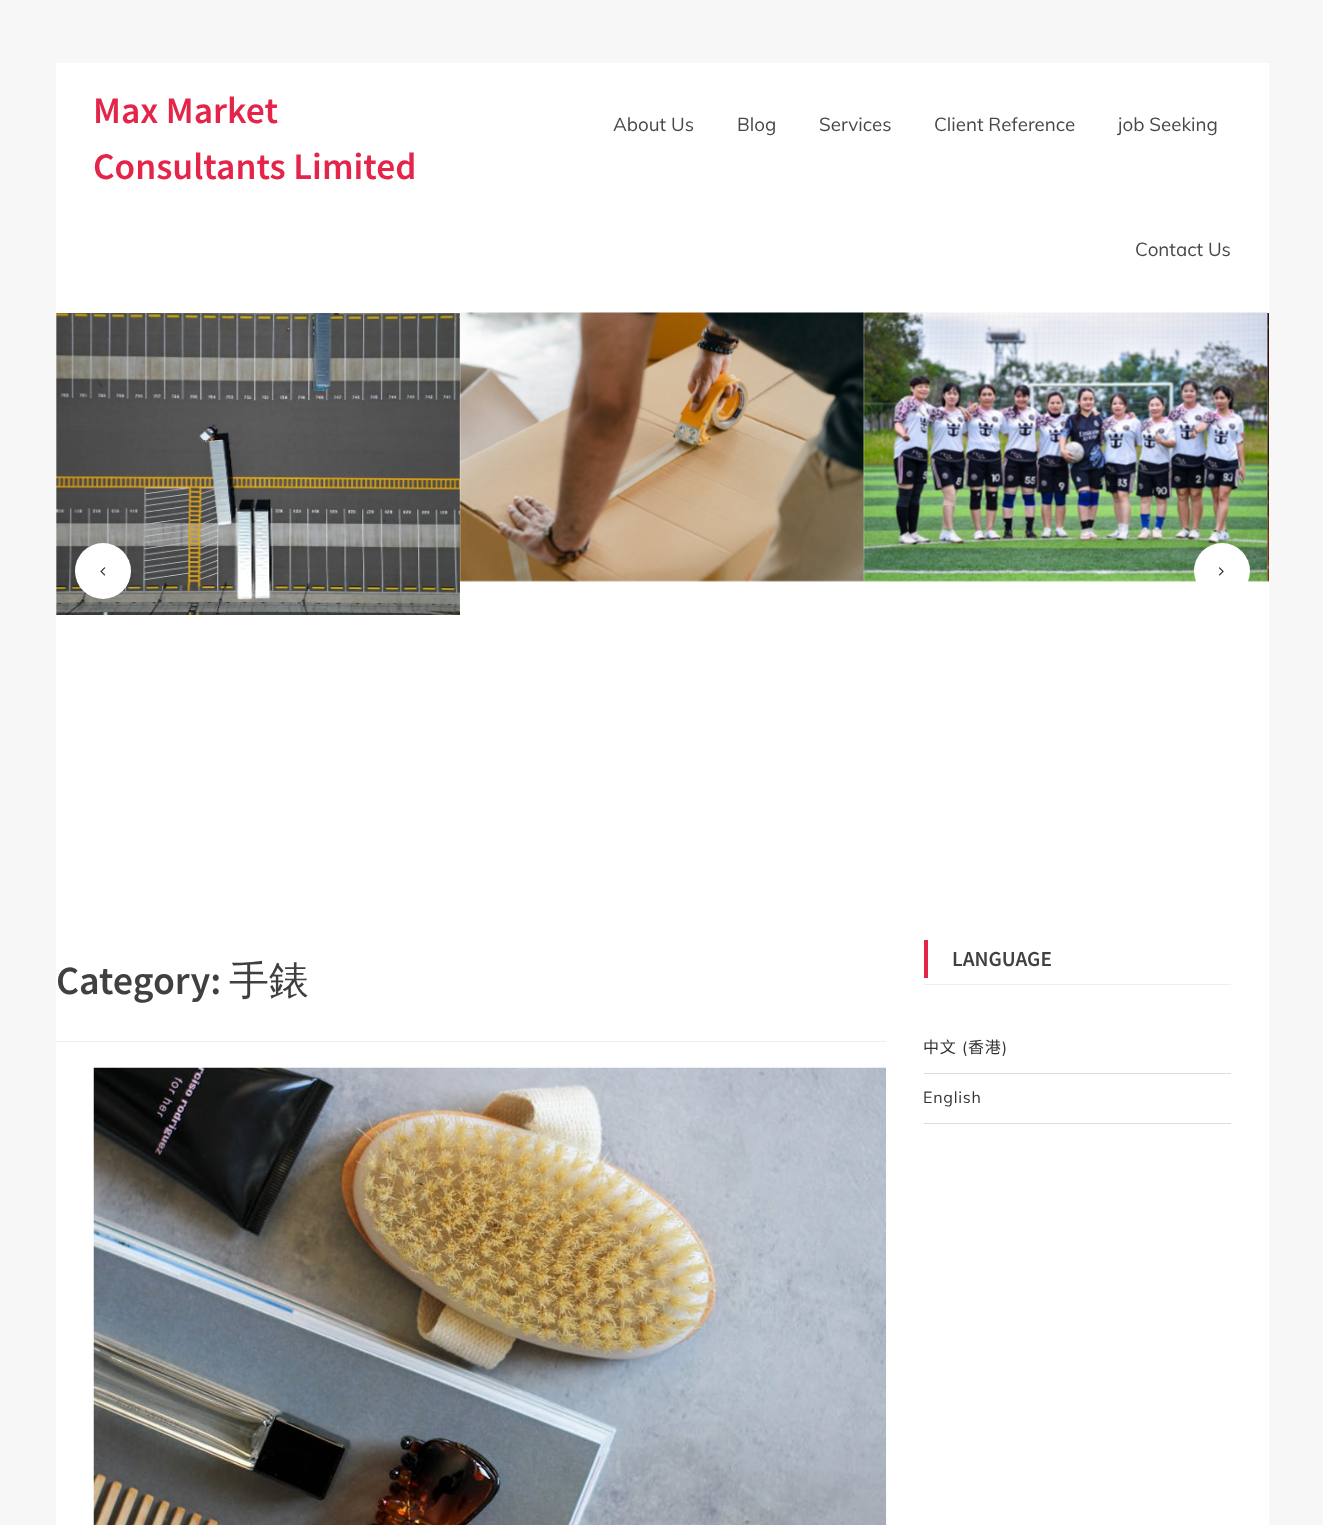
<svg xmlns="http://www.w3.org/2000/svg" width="1323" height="1525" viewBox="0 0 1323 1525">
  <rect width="100%" height="100%" fill="#f7f7f7"/>
  <rect x="56" y="63" width="1213" height="1462" fill="#ffffff"/>
  <text x="93" y="123" font-family="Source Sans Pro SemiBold" font-size="37.5" font-weight="600" fill="#e42549">Max Market</text>
  <text x="93" y="179" font-family="Source Sans Pro SemiBold" font-size="37.5" font-weight="600" fill="#e42549">Consultants Limited</text>
  <text x="613" y="131" font-family="Muli" font-size="18.75" fill="#484848">About Us</text>
  <text x="737" y="131" font-family="Muli" font-size="18.75" fill="#484848">Blog</text>
  <text x="819" y="131" font-family="Muli" font-size="18.75" fill="#484848">Services</text>
  <text x="934" y="131" font-family="Muli" font-size="18.75" fill="#484848">Client Reference</text>
  <text x="1118" y="131" font-family="Muli" font-size="18.75" fill="#484848">job Seeking</text>
  <text x="1135" y="256" font-family="Muli" font-size="18.75" fill="#484848">Contact Us</text>
  <image x="56" y="313" width="404" height="302" href="img1.png"/>
  <image x="459" y="312" width="405" height="270" href="img2.png"/>
  <image x="863" y="312" width="405" height="270" href="img3.png"/>
  <image x="1267" y="313" width="2" height="269" href="img4.png"/>
  <circle cx="103" cy="571" r="28" fill="#ffffff"/>
  <image x="100" y="567" width="6" height="9" href="img5.png"/>
  <circle cx="1222" cy="571" r="28" fill="#ffffff"/>
  <image x="1218" y="567" width="6" height="9" href="img6.png"/>
  <rect x="56" y="1041" width="830" height="1" fill="#eeeeee"/>
  <text x="56" y="994" font-family="Source Sans Pro SemiBold" font-size="40" font-weight="600" fill="#404040">Category:</text>
  <text x="229" y="994" font-family="WenQuanYi Zen Hei" font-size="40" font-weight="500" fill="#404040">手錶</text>
  <image x="93" y="1067" width="794" height="458" href="img7.png"/>
  <rect x="924" y="940" width="4" height="38" fill="#e42549"/>
  <text x="952" y="966" font-family="Source Sans Pro SemiBold" font-size="21.25" font-weight="600" fill="#404040">LANGUAGE</text>
  <rect x="924" y="984" width="307" height="1" fill="#eeeeee"/>
  <rect x="924" y="1073" width="307" height="1" fill="#dddddd"/>
  <text x="923" y="1053" font-family="Noto Sans CJK HK" font-size="16" letter-spacing="0.75" fill="#333333">中文</text>
  <text x="962" y="1053" font-family="Muli" font-size="16" letter-spacing="0.75" fill="#333333">(</text>
  <text x="968" y="1053" font-family="Noto Sans CJK HK" font-size="16" letter-spacing="0.75" fill="#333333">香港</text>
  <text x="1002" y="1053" font-family="Muli" font-size="16" letter-spacing="0.75" fill="#333333">)</text>
  <rect x="924" y="1123" width="307" height="1" fill="#dddddd"/>
  <text x="923" y="1103" font-family="Muli" font-size="16" letter-spacing="0.75" fill="#333333">English</text>
</svg>
